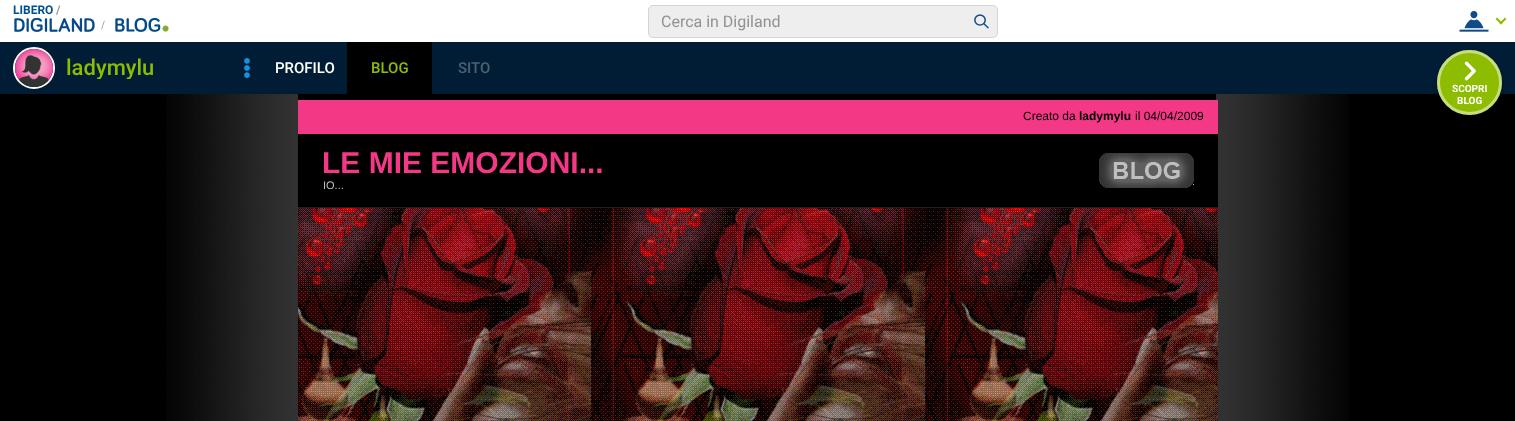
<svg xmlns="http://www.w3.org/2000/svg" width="1515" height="421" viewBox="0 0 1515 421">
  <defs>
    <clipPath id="clip1"><rect x="66" y="57" width="88" height="22"/></clipPath>
    <filter id="blur1" x="-50%" y="-200%" width="200%" height="500%"><feGaussianBlur stdDeviation="3"/></filter>
  </defs>
  <rect width="100%" height="100%" fill="#000000"/>
  <image x="166" y="94" width="1183" height="327" href="img1.png"/>
  <rect x="0" y="0" width="1515" height="42" fill="#ffffff"/>
  <text x="13" y="14" font-family="Roboto" font-size="12" font-weight="bold" fill="#00528f">LIBERO</text>
  <text x="56" y="14" font-family="Roboto" font-size="12" font-weight="bold" fill="#999999">/</text>
  <rect x="648.5" y="5.5" width="349" height="32" rx="4.5" fill="#eeeeee" stroke="#d5d5d5"/>
  <text x="661" y="27" font-family="Roboto" font-size="16" fill="#919191">Cerca in Digiland</text>
  <image x="974" y="14" width="15" height="15" href="img2.png"/>
  <image x="1459" y="10" width="30" height="22" href="img3.png"/>
  <path d="M1505 17.5L1506.5 19L1501 24.5L1499.5 23Z" fill="#8ebc00"/>
  <path d="M1497 17.5L1502.5 23L1501 24.5L1495.5 19Z" fill="#8ebc00"/>
  <image x="14" y="18" width="81" height="14" href="img4.png"/>
  <image x="101" y="20" width="4" height="10" href="img5.png"/>
  <image x="115" y="18" width="54" height="14" href="img6.png"/>
  <rect x="0" y="42" width="1515" height="52" fill="#001d35"/>
  <circle cx="34" cy="68" r="20" fill="none" stroke="#ffffff" stroke-width="2"/>
  <image x="15" y="49" width="38" height="38" href="img7.png"/>
  <g clip-path="url(#clip1)">
    <text x="66" y="75" font-family="Roboto" font-size="22" font-weight="500" fill="#8ebc00">ladymylu</text>
  </g>
  <image x="244" y="58" width="6" height="20" href="img8.png"/>
  <text x="275" y="73" font-family="Roboto" font-size="15" font-weight="500" fill="#ffffff">PROFILO</text>
  <rect x="347" y="42" width="85" height="52" fill="#000000"/>
  <text x="371" y="73" font-family="Roboto" font-size="15" font-weight="500" fill="#8ebc00">BLOG</text>
  <text x="458" y="73" font-family="Roboto" font-size="15" font-weight="500" fill="#4d6172">SITO</text>
  <rect x="1437" y="56" width="65" height="65" rx="32.5" fill="#000000" fill-opacity="0.3" filter="url(#blur1)"/>
  <circle cx="1469.5" cy="82.5" r="32.5" fill="#8ebc00"/>
  <circle cx="1469.5" cy="82.5" r="31" fill="none" stroke="#ffffff" stroke-opacity="0.5" stroke-width="3"/>
  <image x="1464" y="61" width="12" height="20" href="img9.png"/>
  <text x="1452" y="92" font-family="Roboto" font-size="10" font-weight="bold" fill="#ffffff">SCOPRI</text>
  <text x="1457" y="104" font-family="Roboto" font-size="10" font-weight="bold" fill="#ffffff">BLOG</text>
  <rect x="1216" y="134" width="2" height="73" fill="#000000"/>
  <rect x="298" y="100" width="920" height="34" fill="#f33886"/>
  <text x="1023" y="120" font-family="Liberation Sans" font-size="12" fill="#000000">Creato da</text>
  <text x="1079" y="120" font-family="Liberation Sans" font-size="12" font-weight="bold" fill="#000000">ladymylu</text>
  <text x="1135" y="120" font-family="Liberation Sans" font-size="12" fill="#000000">il 04/04/2009</text>
  <text x="322" y="173" font-family="Liberation Sans" font-size="30" font-weight="bold" fill="#f33886">LE MIE EMOZIONI...</text>
  <image x="1099" y="153" width="95" height="35" href="img10.png"/>
  <text x="323" y="189" font-family="Liberation Sans" font-size="11" fill="#bfbfbf">IO...</text>
  <image x="298" y="208" width="920" height="213" href="img11.png"/>
  <rect x="298" y="207" width="920" height="1" fill="#202020"/>
</svg>
